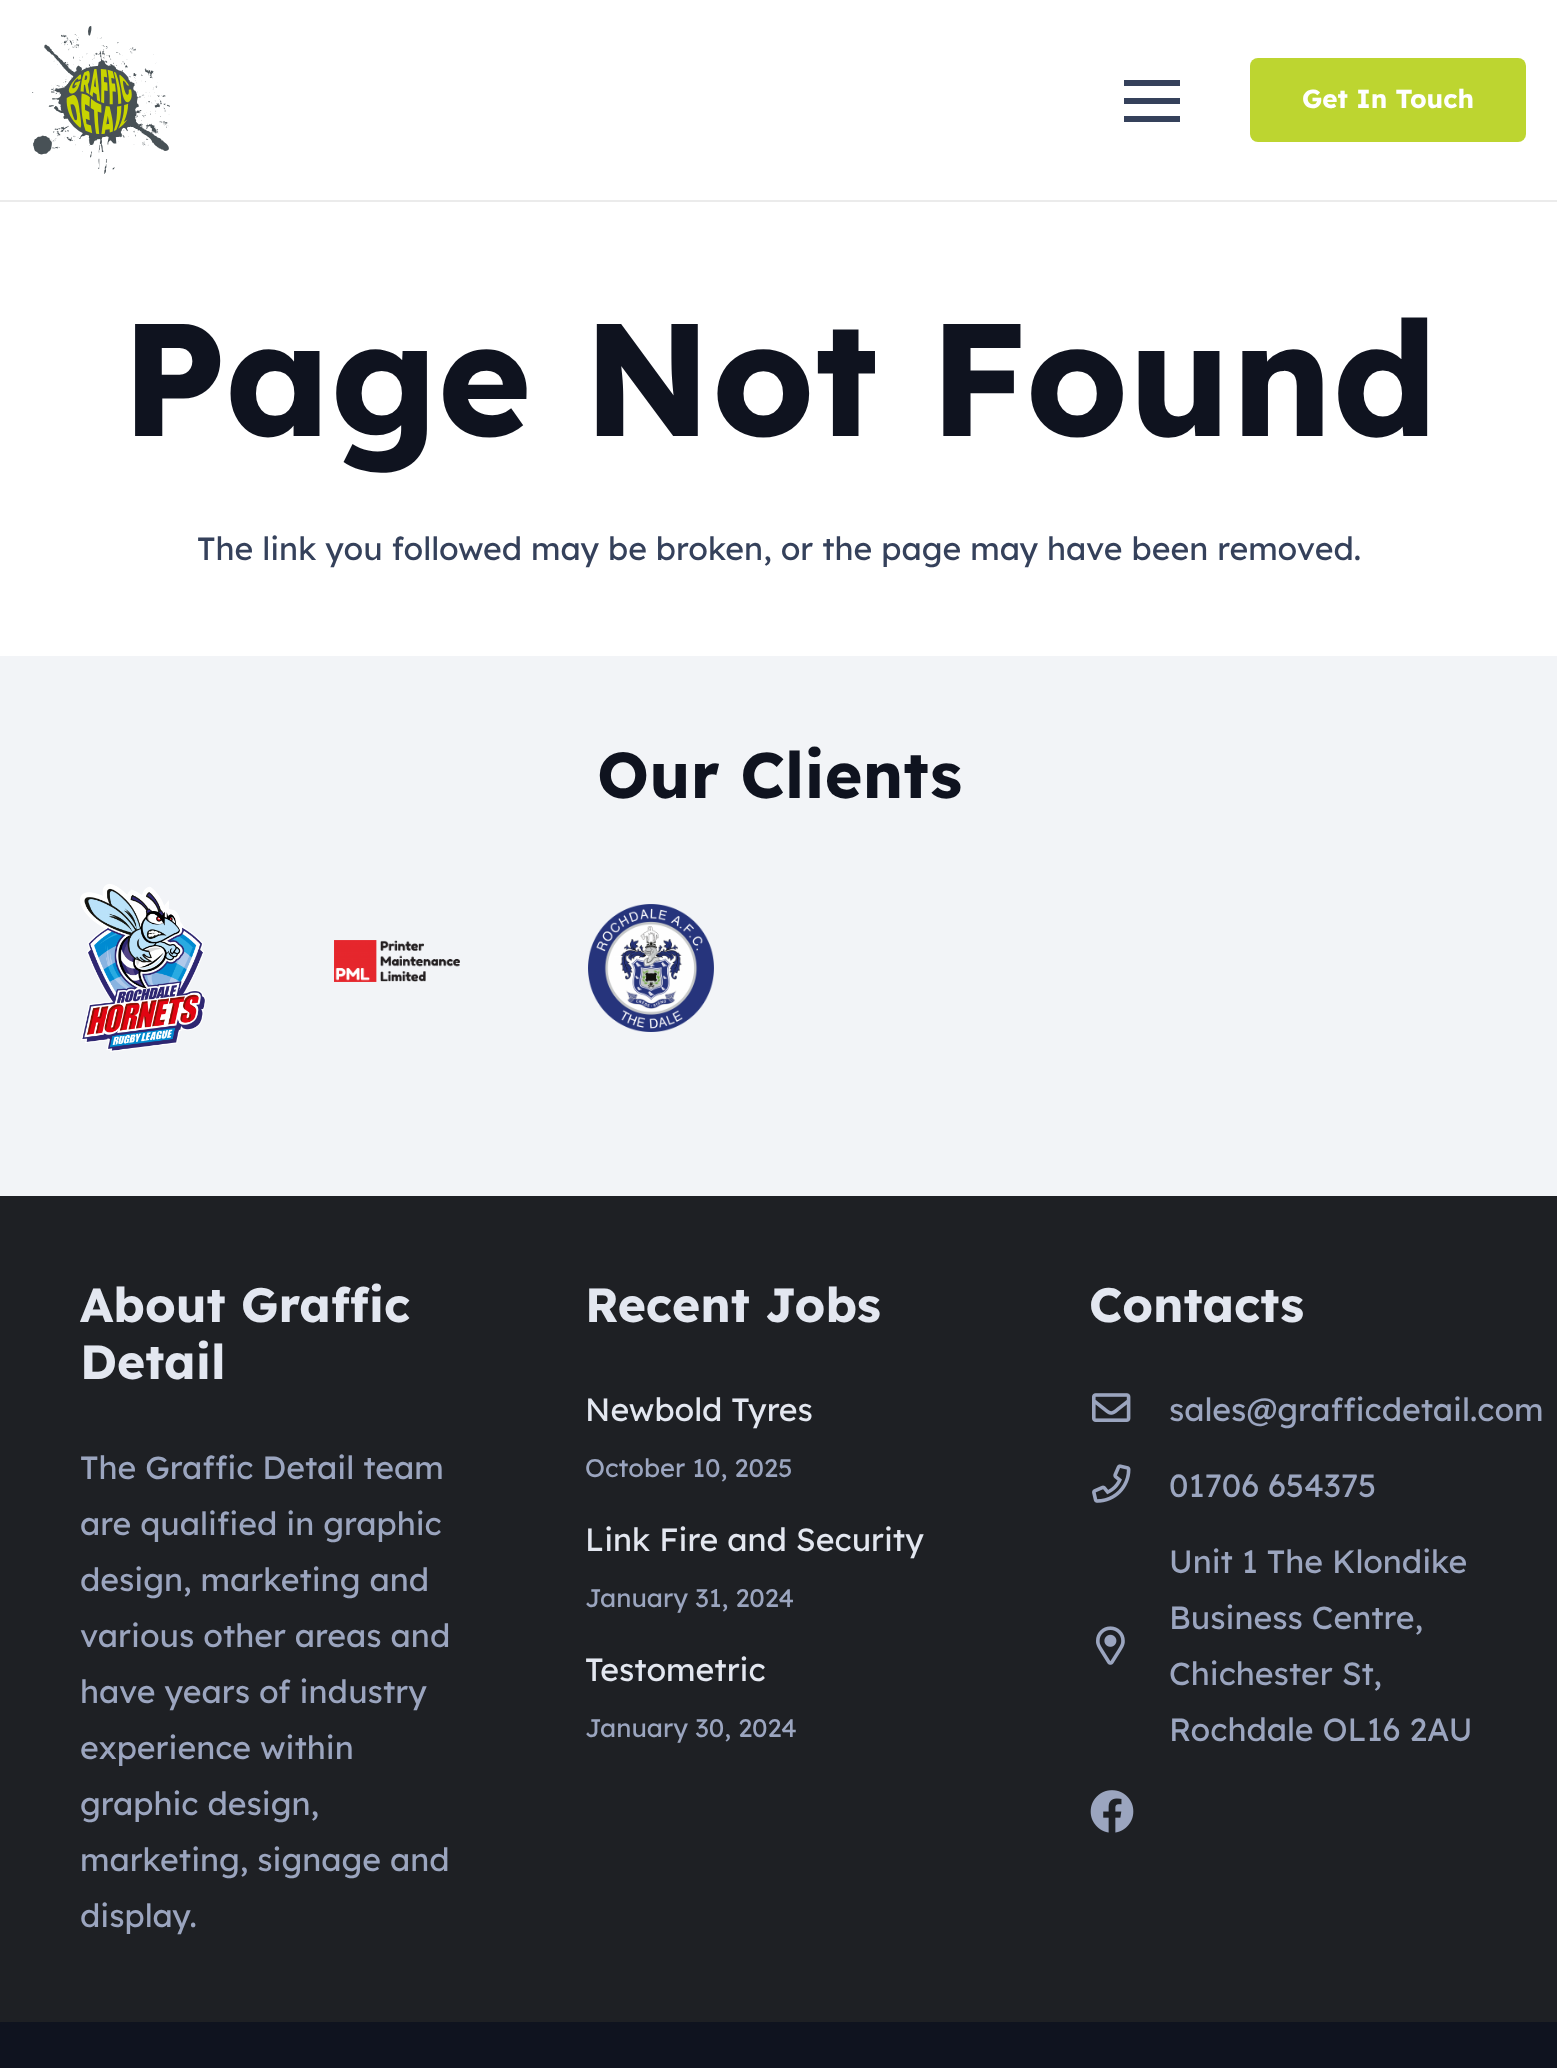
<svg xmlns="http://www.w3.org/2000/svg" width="1557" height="2068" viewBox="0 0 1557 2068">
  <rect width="100%" height="100%" fill="#ffffff"/>
  <rect x="0" y="200" width="1557" height="2" fill="#ebebeb"/>
  <image x="32" y="26" width="138" height="148" href="img1.png"/>
  <rect x="1124" y="98" width="56" height="6" fill="#35415b"/>
  <rect x="1124" y="80" width="56" height="6" fill="#35415b"/>
  <rect x="1124" y="116" width="56" height="6" fill="#35415b"/>
  <rect x="1250" y="58" width="276" height="84" rx="8" fill="#bdd530"/>
  <text x="1302" y="108" font-family="Lexend" font-size="26" font-weight="bold" fill="#ffffff">Get In Touch</text>
  <text x="121" y="436" font-family="Lexend" font-size="160" font-weight="bold" fill="#0f131f">Page Not Found</text>
  <text x="197" y="560" font-family="Lexend" font-size="32" fill="#35415b">The link you followed may be broken, or the page may have been removed.</text>
  <rect x="0" y="656" width="1557" height="540" fill="#f2f4f7"/>
  <text x="597" y="798" font-family="Lexend" font-size="64.25" font-weight="bold" fill="#0f131f">Our Clients</text>
  <image x="80" y="884" width="126" height="168" href="img2.png"/>
  <image x="334" y="940" width="126" height="42" href="img3.png"/>
  <image x="588" y="904" width="126" height="128" href="img4.png"/>
  <rect x="0" y="1196" width="1557" height="826" fill="#1e2024"/>
  <text x="80" y="1322" font-family="Lexend" font-size="48" font-weight="bold" fill="#e3e7f0">About Graffic</text>
  <text x="80" y="1379" font-family="Lexend" font-size="48" font-weight="bold" fill="#e3e7f0">Detail</text>
  <text x="80" y="1479" font-family="Lexend" font-size="32" fill="#9ba5bf">The Graffic Detail team</text>
  <text x="80" y="1535" font-family="Lexend" font-size="32" fill="#9ba5bf">are qualified in graphic</text>
  <text x="80" y="1591" font-family="Lexend" font-size="32" fill="#9ba5bf">design, marketing and</text>
  <text x="80" y="1647" font-family="Lexend" font-size="32" fill="#9ba5bf">various other areas and</text>
  <text x="80" y="1703" font-family="Lexend" font-size="32" fill="#9ba5bf">have years of industry</text>
  <text x="80" y="1759" font-family="Lexend" font-size="32" fill="#9ba5bf">experience within</text>
  <text x="80" y="1815" font-family="Lexend" font-size="32" fill="#9ba5bf">graphic design,</text>
  <text x="80" y="1871" font-family="Lexend" font-size="32" fill="#9ba5bf">marketing, signage and</text>
  <text x="80" y="1927" font-family="Lexend" font-size="32" fill="#9ba5bf">display.</text>
  <text x="585" y="1322" font-family="Lexend" font-size="48" font-weight="bold" fill="#e3e7f0">Recent Jobs</text>
  <text x="585" y="1421" font-family="Lexend" font-size="32" fill="#e3e7f0">Newbold Tyres</text>
  <text x="585" y="1477" font-family="Lexend" font-size="25.5" fill="#9ba5bf">October 10, 2025</text>
  <text x="585" y="1551" font-family="Lexend" font-size="32" fill="#e3e7f0">Link Fire and Security</text>
  <text x="585" y="1607" font-family="Lexend" font-size="25.5" fill="#9ba5bf">January 31, 2024</text>
  <text x="585" y="1681" font-family="Lexend" font-size="32" fill="#e3e7f0">Testometric</text>
  <text x="585" y="1737" font-family="Lexend" font-size="25.5" fill="#9ba5bf">January 30, 2024</text>
  <text x="1089" y="1322" font-family="Lexend" font-size="48" font-weight="bold" fill="#e3e7f0">Contacts</text>
  <image x="1092" y="1393" width="39" height="29" href="img5.png"/>
  <text x="1169" y="1421" font-family="Lexend" font-size="32" fill="#9ba5bf">sales@grafficdetail.com</text>
  <image x="1092" y="1464" width="39" height="39" href="img6.png"/>
  <text x="1169" y="1497" font-family="Lexend" font-size="32" fill="#9ba5bf">01706 654375</text>
  <image x="1096" y="1626" width="29" height="39" href="img7.png"/>
  <text x="1169" y="1573" font-family="Lexend" font-size="32" fill="#9ba5bf">Unit 1 The Klondike</text>
  <text x="1169" y="1629" font-family="Lexend" font-size="32" fill="#9ba5bf">Business Centre,</text>
  <text x="1169" y="1685" font-family="Lexend" font-size="32" fill="#9ba5bf">Chichester St,</text>
  <text x="1169" y="1741" font-family="Lexend" font-size="32" fill="#9ba5bf">Rochdale OL16 2AU</text>
  <image x="1090" y="1790" width="44" height="43" href="img8.png"/>
  <rect x="0" y="2022" width="1557" height="46" fill="#0f131f"/>
</svg>
